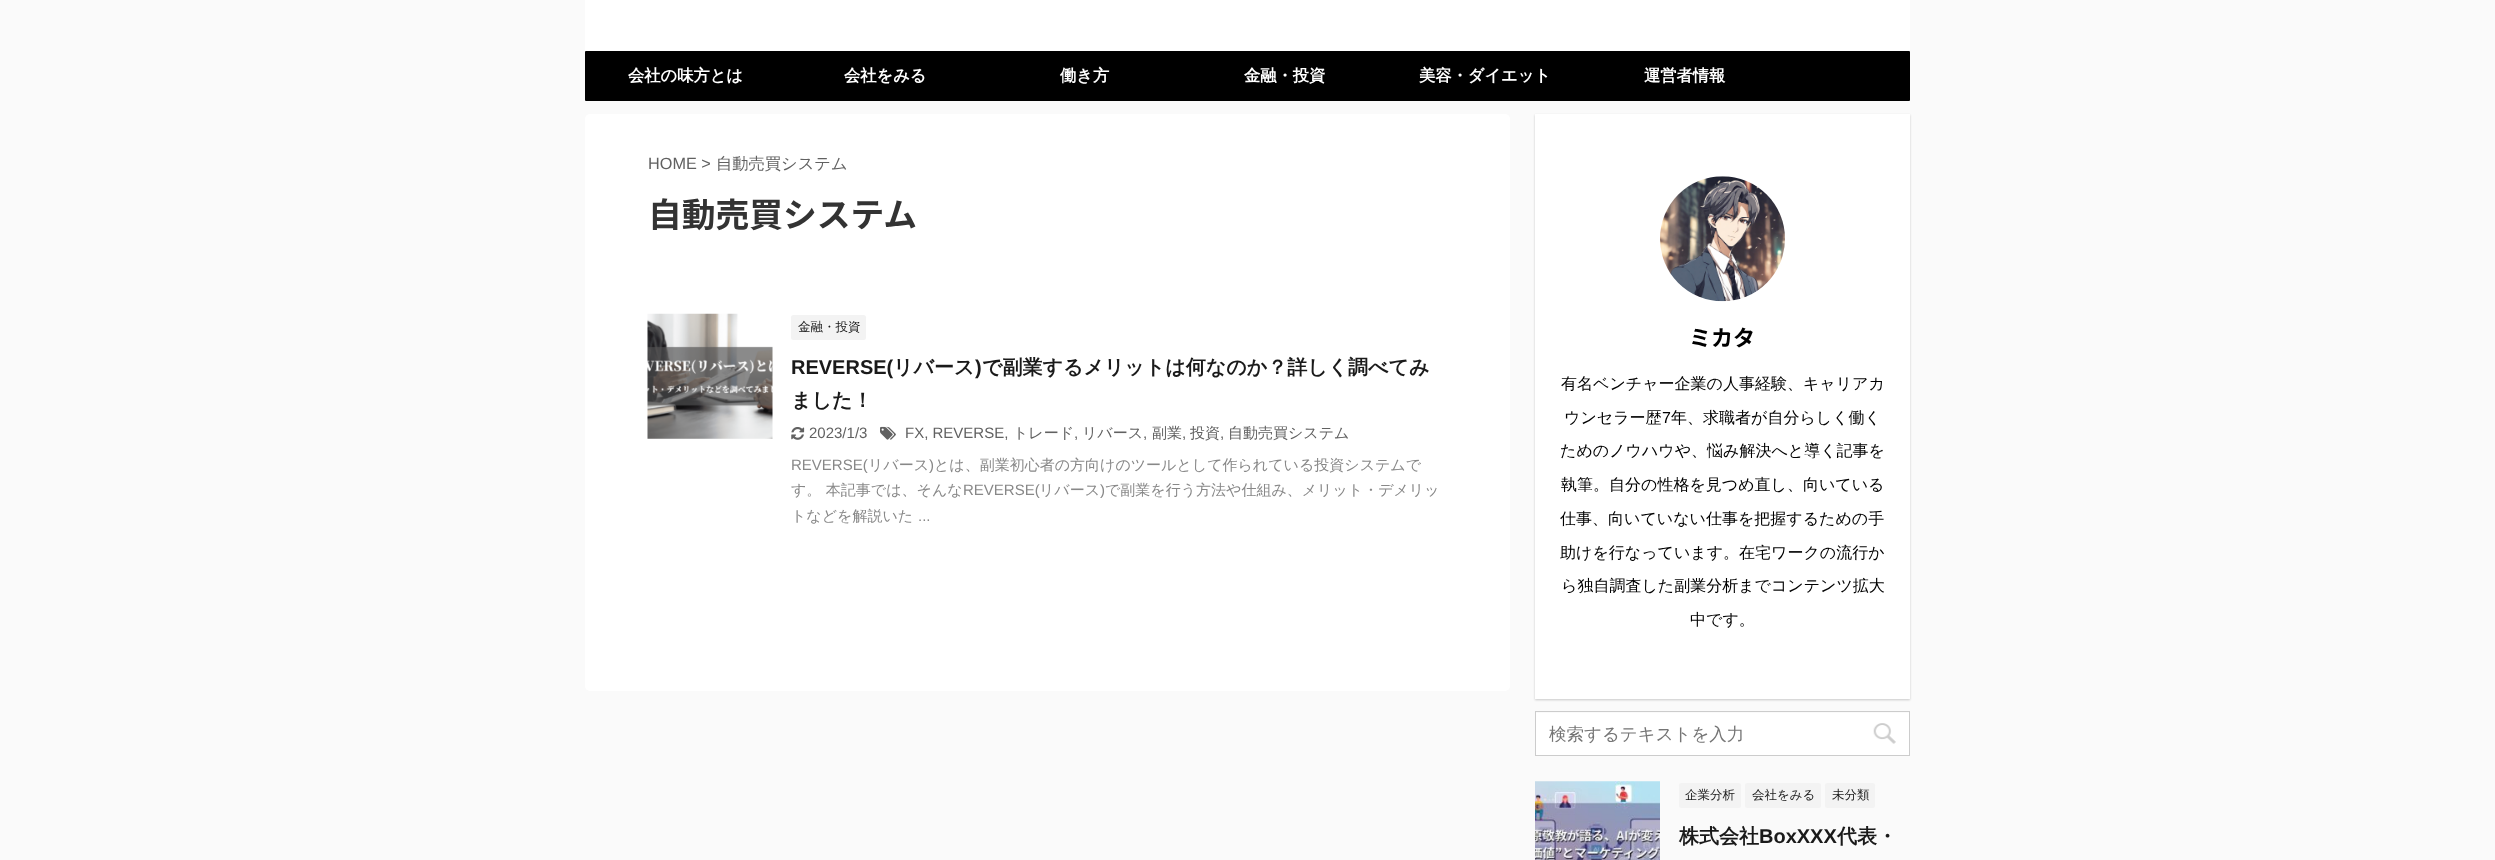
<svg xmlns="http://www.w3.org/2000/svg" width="2495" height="860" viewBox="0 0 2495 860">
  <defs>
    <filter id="blur1" x="-50%" y="-200%" width="200%" height="500%"><feGaussianBlur stdDeviation="1"/></filter>
  </defs>
  <rect width="100%" height="100%" fill="#fafafa"/>
  <rect x="585" y="0" width="1325" height="51" fill="#ffffff"/>
  <rect x="585" y="51" width="1325" height="50" rx="1" fill="#000000"/>
  <text x="628" y="81" font-family="WenQuanYi Zen Hei" font-size="16.25" font-weight="bold" fill="#ffffff">会社の味方とは</text>
  <text x="844" y="81" font-family="WenQuanYi Zen Hei" font-size="16.25" font-weight="bold" fill="#ffffff">会社をみる</text>
  <text x="1060" y="81" font-family="WenQuanYi Zen Hei" font-size="16.25" font-weight="bold" fill="#ffffff">働き方</text>
  <text x="1244" y="81" font-family="WenQuanYi Zen Hei" font-size="16.25" font-weight="bold" fill="#ffffff">金融・投資</text>
  <text x="1419" y="81" font-family="WenQuanYi Zen Hei" font-size="16.25" font-weight="bold" fill="#ffffff">美容・ダイエット</text>
  <text x="1644" y="81" font-family="WenQuanYi Zen Hei" font-size="16.25" font-weight="bold" fill="#ffffff">運営者情報</text>
  <rect x="585" y="114" width="925" height="577" rx="5" fill="#ffffff"/>
  <text x="648" y="169" font-family="Liberation Sans" font-size="16.25" fill="#616161">HOME &gt;</text>
  <text x="716" y="169" font-family="WenQuanYi Zen Hei" font-size="16.25" font-weight="500" fill="#616161">自動売買システム</text>
  <text x="648" y="227" font-family="Noto Sans JP" font-size="33.75" font-weight="bold" fill="#333333">自動売買システム</text>
  <image x="647" y="313" width="126" height="126" href="img1.png"/>
  <rect x="791" y="315" width="75" height="25" rx="2.5" fill="#f3f3f3"/>
  <text x="798" y="331" font-family="WenQuanYi Zen Hei" font-size="12.5" font-weight="500" fill="#1a1a1a">金融・投資</text>
  <text x="791" y="374" font-family="Liberation Sans" font-size="20" font-weight="bold" fill="#1a1a1a">REVERSE(</text>
  <text x="893" y="374" font-family="WenQuanYi Zen Hei" font-size="20" font-weight="bold" fill="#1a1a1a">リバース</text>
  <text x="975" y="374" font-family="Liberation Sans" font-size="20" font-weight="bold" fill="#1a1a1a">)</text>
  <text x="982" y="374" font-family="WenQuanYi Zen Hei" font-size="20" font-weight="bold" fill="#1a1a1a">で副業するメリットは何なのか？詳しく調べてみ</text>
  <text x="791" y="407" font-family="WenQuanYi Zen Hei" font-size="20" font-weight="bold" fill="#1a1a1a">ました！</text>
  <image x="791" y="427" width="14" height="13" href="img2.png"/>
  <text x="809" y="438" font-family="Liberation Sans" font-size="15" fill="#616161">2023/1/3</text>
  <image x="880" y="426" width="16" height="14" href="img3.png"/>
  <text x="905" y="438" font-family="Liberation Sans" font-size="15" fill="#616161">FX, REVERSE,</text>
  <text x="1013" y="438" font-family="WenQuanYi Zen Hei" font-size="15" font-weight="500" fill="#616161">トレード</text>
  <text x="1074" y="438" font-family="Liberation Sans" font-size="15" fill="#616161">,</text>
  <text x="1082" y="438" font-family="WenQuanYi Zen Hei" font-size="15" font-weight="500" fill="#616161">リバース</text>
  <text x="1143" y="438" font-family="Liberation Sans" font-size="15" fill="#616161">,</text>
  <text x="1152" y="438" font-family="WenQuanYi Zen Hei" font-size="15" font-weight="500" fill="#616161">副業</text>
  <text x="1182" y="438" font-family="Liberation Sans" font-size="15" fill="#616161">,</text>
  <text x="1190" y="438" font-family="WenQuanYi Zen Hei" font-size="15" font-weight="500" fill="#616161">投資</text>
  <text x="1220" y="438" font-family="Liberation Sans" font-size="15" fill="#616161">,</text>
  <text x="1228" y="438" font-family="WenQuanYi Zen Hei" font-size="15" font-weight="500" fill="#616161">自動売買システム</text>
  <text x="791" y="470" font-family="Liberation Sans" font-size="15" fill="#888888">REVERSE(</text>
  <text x="868" y="470" font-family="WenQuanYi Zen Hei" font-size="15" font-weight="500" fill="#888888">リバース</text>
  <text x="929" y="470" font-family="Liberation Sans" font-size="15" fill="#888888">)</text>
  <text x="934" y="470" font-family="WenQuanYi Zen Hei" font-size="15" font-weight="500" fill="#888888">とは、副業初心者の方向けのツールとして作られている投資システムで</text>
  <text x="791" y="495" font-family="WenQuanYi Zen Hei" font-size="15" font-weight="500" fill="#888888">す。 本記事では、そんな</text>
  <text x="963" y="495" font-family="Liberation Sans" font-size="15" fill="#888888">REVERSE(</text>
  <text x="1039" y="495" font-family="WenQuanYi Zen Hei" font-size="15" font-weight="500" fill="#888888">リバース</text>
  <text x="1100" y="495" font-family="Liberation Sans" font-size="15" fill="#888888">)</text>
  <text x="1105" y="495" font-family="WenQuanYi Zen Hei" font-size="15" font-weight="500" fill="#888888">で副業を行う方法や仕組み、メリット・デメリッ</text>
  <text x="791" y="521" font-family="WenQuanYi Zen Hei" font-size="15" font-weight="500" fill="#888888">トなどを解説いた</text>
  <text x="918" y="521" font-family="Liberation Sans" font-size="15" fill="#888888">...</text>
  <rect x="1535" y="115" width="375" height="585" fill="#000000" fill-opacity="0.2" filter="url(#blur1)"/>
  <rect x="1535" y="114" width="375" height="585" fill="#ffffff"/>
  <image x="1660" y="176" width="125" height="126" href="img4.png"/>
  <text x="1689" y="346" font-family="Noto Sans JP" font-size="22" font-weight="bold" fill="#000000">ミカタ</text>
  <text x="1561" y="389" font-family="WenQuanYi Zen Hei" font-size="16" font-weight="500" fill="#000000">有名ベンチャー企業の人事経験、キャリアカ</text>
  <text x="1564" y="423" font-family="WenQuanYi Zen Hei" font-size="16" font-weight="500" fill="#000000">ウンセラー歴</text>
  <text x="1662" y="423" font-family="Liberation Sans" font-size="16" fill="#000000">7</text>
  <text x="1671" y="423" font-family="WenQuanYi Zen Hei" font-size="16" font-weight="500" fill="#000000">年、求職者が自分らしく働く</text>
  <text x="1560" y="456" font-family="WenQuanYi Zen Hei" font-size="16" font-weight="500" fill="#000000">ためのノウハウや、悩み解決へと導く記事を</text>
  <text x="1561" y="490" font-family="WenQuanYi Zen Hei" font-size="16" font-weight="500" fill="#000000">執筆。自分の性格を見つめ直し、向いている</text>
  <text x="1560" y="524" font-family="WenQuanYi Zen Hei" font-size="16" font-weight="500" fill="#000000">仕事、向いていない仕事を把握するための手</text>
  <text x="1560" y="558" font-family="WenQuanYi Zen Hei" font-size="16" font-weight="500" fill="#000000">助けを行なっています。在宅ワークの流行か</text>
  <text x="1561" y="591" font-family="WenQuanYi Zen Hei" font-size="16" font-weight="500" fill="#000000">ら独自調査した副業分析までコンテンツ拡大</text>
  <text x="1690" y="625" font-family="WenQuanYi Zen Hei" font-size="16" font-weight="500" fill="#000000">中です。</text>
  <rect x="1535.5" y="711.5" width="374" height="44" fill="none" stroke="#cccccc"/>
  <rect x="1536" y="713" width="373" height="42" fill="#ffffff"/>
  <text x="1549" y="740" font-family="WenQuanYi Zen Hei" font-size="17.5" font-weight="500" fill="#757575">検索するテキストを入力</text>
  <image x="1873" y="723" width="23" height="21" href="img5.png"/>
  <image x="1535" y="781" width="125" height="79" href="img6.png"/>
  <rect x="1679" y="783" width="62" height="25" rx="2.5" fill="#f3f3f3"/>
  <text x="1685" y="799" font-family="WenQuanYi Zen Hei" font-size="12.5" font-weight="500" fill="#1a1a1a">企業分析</text>
  <rect x="1745" y="783" width="76" height="25" rx="2.5" fill="#f3f3f3"/>
  <text x="1752" y="799" font-family="WenQuanYi Zen Hei" font-size="12.5" font-weight="500" fill="#1a1a1a">会社をみる</text>
  <rect x="1825" y="783" width="50" height="25" rx="2.5" fill="#f3f3f3"/>
  <text x="1832" y="799" font-family="WenQuanYi Zen Hei" font-size="12.5" font-weight="500" fill="#1a1a1a">未分類</text>
  <text x="1679" y="843" font-family="WenQuanYi Zen Hei" font-size="20" font-weight="bold" fill="#1a1a1a">株式会社</text>
  <text x="1759" y="843" font-family="Liberation Sans" font-size="20" font-weight="bold" fill="#1a1a1a">BoxXXX</text>
  <text x="1837" y="843" font-family="WenQuanYi Zen Hei" font-size="20" font-weight="bold" fill="#1a1a1a">代表・</text>
</svg>
